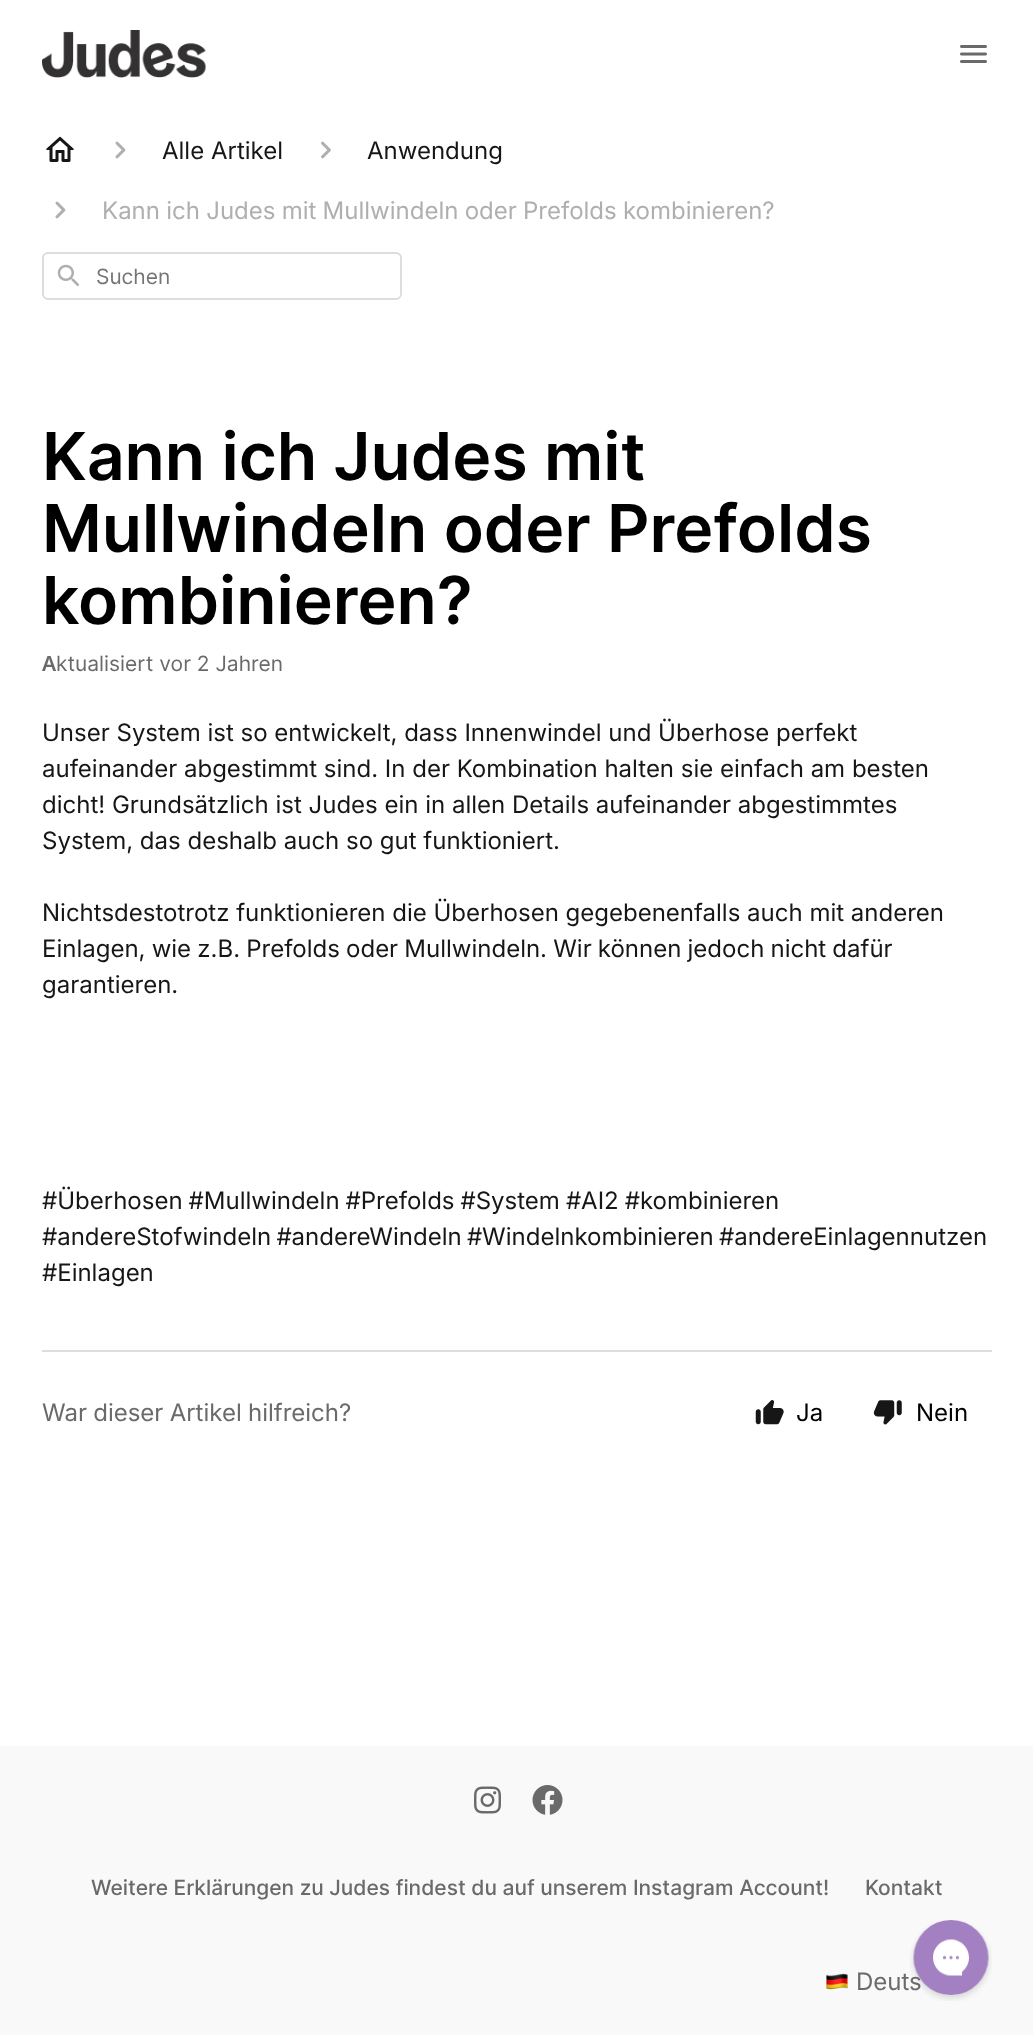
<svg xmlns="http://www.w3.org/2000/svg" width="1033" height="2035" viewBox="0 0 1033 2035">
  <rect width="100%" height="100%" fill="#ffffff"/>
  <image x="42" y="30" width="164" height="48" href="img1.png"/>
  <image x="960" y="45" width="27" height="18" href="img2.png"/>
  <image x="46" y="136" width="28" height="26" href="img3.png"/>
  <image x="115" y="141" width="11" height="18" href="img4.png"/>
  <text x="162" y="159" font-family="Inter" font-size="24" fill="#161616">Alle Artikel</text>
  <image x="321" y="141" width="10" height="18" href="img5.png"/>
  <text x="367" y="159" font-family="Inter" font-size="24" fill="#161616">Anwendung</text>
  <image x="55" y="201" width="11" height="18" href="img4.png"/>
  <text x="102" y="219" word-spacing="-0.5" font-family="Inter" font-size="24" fill="#afafaf">Kann ich Judes mit Mullwindeln oder Prefolds kombinieren?</text>
  <rect x="43" y="253" width="358" height="46" rx="5" fill="none" stroke="#dddddd" stroke-width="2"/>
  <image x="57" y="264" width="22" height="22" href="img6.png"/>
  <text x="96" y="284" font-family="'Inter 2'" font-size="21" fill="#757575">Suchen</text>
  <text x="42" y="480" font-family="Inter" font-size="66" font-weight="600" fill="#000000">Kann ich Judes mit</text>
  <text x="42" y="552" font-family="Inter" font-size="66" font-weight="600" fill="#000000">Mullwindeln oder Prefolds</text>
  <text x="42" y="624" font-family="Inter" font-size="66" font-weight="600" fill="#000000">kombinieren?</text>
  <text x="42" y="671" font-family="Noto Sans" font-size="21" font-weight="600" fill="#6a6a6a">A</text>
  <text x="56" y="671" font-family="'Inter 2'" font-size="21" fill="#6a6a6a">ktualisiert vor 2 Jahren</text>
  <text x="42" y="741" font-family="Inter" font-size="24" fill="#161616">Unser System ist so entwickelt, dass Innenwindel und Überhose perfekt</text>
  <text x="42" y="777" font-family="Inter" font-size="24" fill="#161616">aufeinander abgestimmt sind. In der Kombination halten sie einfach am besten</text>
  <text x="42" y="813" font-family="Inter" font-size="24" fill="#161616">dicht! Grundsätzlich ist Judes ein in allen Details aufeinander abgestimmtes</text>
  <text x="42" y="849" font-family="Inter" font-size="24" fill="#161616">System, das deshalb auch so gut funktioniert.</text>
  <text x="42" y="921" font-family="Inter" font-size="24" fill="#161616">Nichtsdestotrotz funktionieren die Überhosen gegebenenfalls auch mit anderen</text>
  <text x="42" y="957" word-spacing="-0.6" font-family="Inter" font-size="24" fill="#161616">Einlagen, wie z.B. Prefolds oder Mullwindeln. Wir können jedoch nicht dafür</text>
  <text x="42" y="993" font-family="Inter" font-size="24" fill="#161616">garantieren.</text>
  <text x="42" y="1209" word-spacing="-0.75" font-family="Inter" font-size="24" fill="#161616">#Überhosen #Mullwindeln #Prefolds #System #AI2 #kombinieren</text>
  <text x="42" y="1245" word-spacing="-1.5" font-family="Inter" font-size="24" fill="#161616">#andereStofwindeln #andereWindeln #Windelnkombinieren #andereEinlagennutzen</text>
  <text x="42" y="1281" font-family="Inter" font-size="24" fill="#161616">#Einlagen</text>
  <rect x="42" y="1350" width="950" height="2" fill="#dddddd"/>
  <text x="42" y="1421" word-spacing="-0.5" font-family="Inter" font-size="24" fill="#6a6a6a">War dieser Artikel hilfreich?</text>
  <image x="755" y="1400" width="29" height="25" href="img7.png"/>
  <text x="796" y="1421" font-family="Inter" font-size="24" fill="#000000">Ja</text>
  <image x="873" y="1400" width="29" height="25" href="img8.png"/>
  <text x="916" y="1421" font-family="Inter" font-size="24" fill="#000000">Nein</text>
  <rect x="0" y="1746" width="1033" height="289" fill="#f9f9f9"/>
  <image x="474" y="1786" width="27" height="28" href="img9.png"/>
  <image x="532" y="1785" width="31" height="30" href="img10.png"/>
  <text x="91" y="1895" font-family="Inter" font-size="21" font-weight="500" fill="#6a6a6a">Weitere Erklärungen zu Judes findest du auf unserem Instagram Account!</text>
  <text x="865" y="1895" font-family="Inter" font-size="21" font-weight="500" fill="#6a6a6a">Kontakt</text>
  <image x="826" y="1973" width="22" height="17" href="img11.png"/>
  <text x="856" y="1990" font-family="Inter" font-size="24" fill="#6a6a6a">Deuts</text>
  <image x="974" y="1981" width="5" height="5" href="img12.png"/>
  <image x="910" y="1920" width="82" height="81" href="img13.png"/>
</svg>
